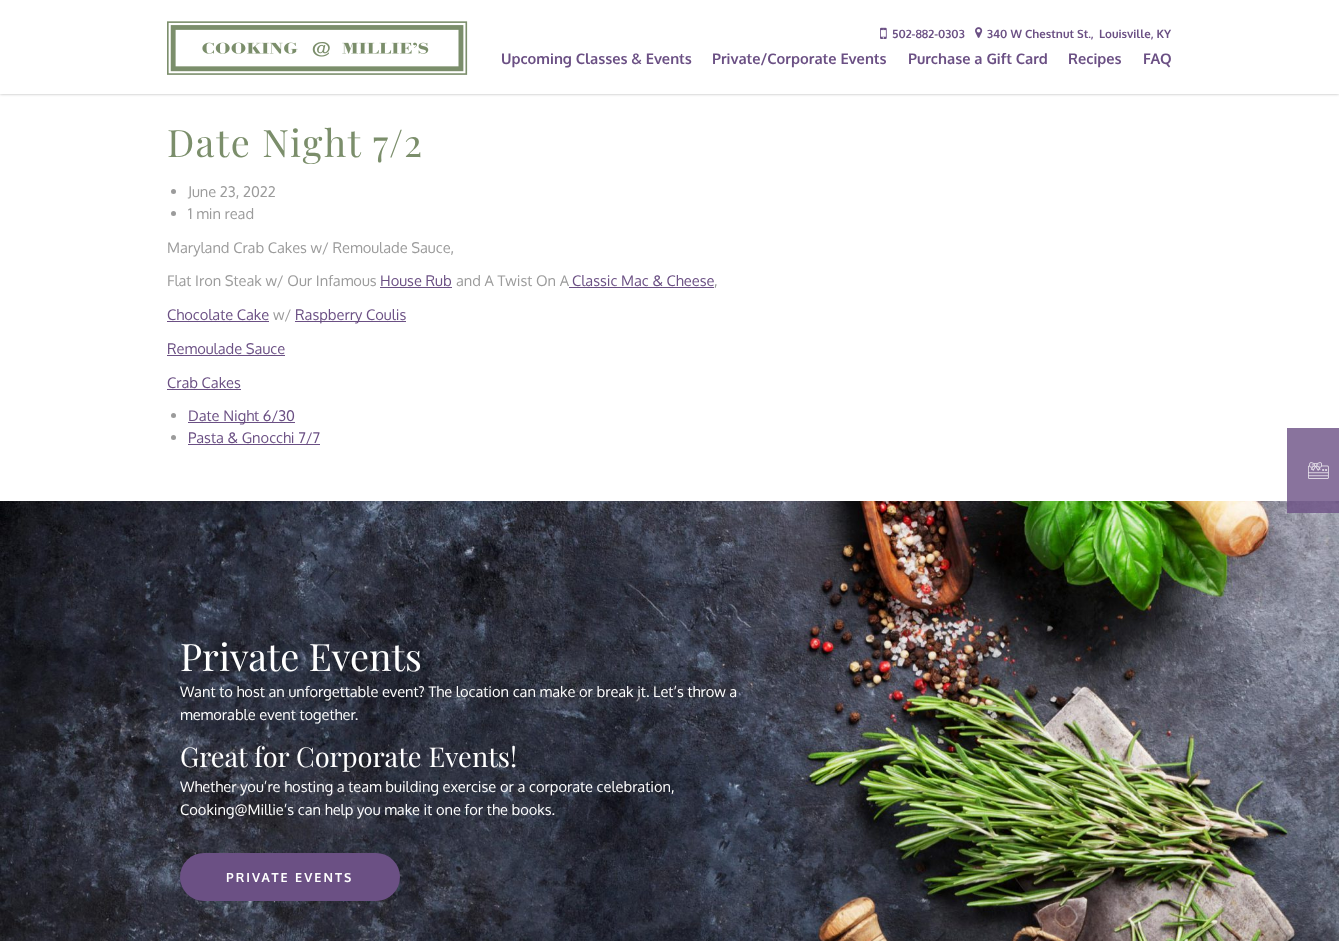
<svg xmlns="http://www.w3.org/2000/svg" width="1339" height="941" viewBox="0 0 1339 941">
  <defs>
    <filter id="blur1" x="-50%" y="-200%" width="200%" height="500%"><feGaussianBlur stdDeviation="1.5"/></filter>
  </defs>
  <rect width="100%" height="100%" fill="#ffffff"/>
  <rect x="0" y="0" width="1339" height="94" fill="#000000" fill-opacity="0.3" filter="url(#blur1)"/>
  <rect x="0" y="0" width="1339" height="94" fill="#ffffff"/>
  <image x="167" y="21" width="301" height="54" href="img1.png"/>
  <image x="880" y="27" width="7" height="12" href="img2.png"/>
  <text x="892" y="38" font-family="Oxygen" font-size="11.5" font-weight="bold" fill="#6b5084">502-882-0303</text>
  <image x="975" y="27" width="8" height="11" href="img3.png"/>
  <text x="987" y="38" font-family="Oxygen" font-size="11.5" font-weight="bold" fill="#6b5084">340 W Chestnut St.,</text>
  <text x="1099" y="38" font-family="Oxygen" font-size="11.5" font-weight="bold" fill="#6b5084">Louisville, KY</text>
  <text x="501" y="64" font-family="Oxygen" font-size="14.65" font-weight="bold" fill="#6b5084">Upcoming Classes &amp; Events</text>
  <text x="712" y="64" font-family="Oxygen" font-size="14.65" font-weight="bold" fill="#6b5084">Private/Corporate Events</text>
  <text x="908" y="64" font-family="Oxygen" font-size="14.65" font-weight="bold" fill="#6b5084">Purchase a Gift Card</text>
  <text x="1068" y="64" font-family="Oxygen" font-size="14.65" font-weight="bold" fill="#6b5084">Recipes</text>
  <text x="1143" y="64" font-family="Oxygen" font-size="14.65" font-weight="bold" fill="#6b5084">FAQ</text>
  <text x="167" y="157" font-family="Playfair Display" font-size="37.75" letter-spacing="1.5" fill="#7b8e6b">Date Night 7/2</text>
  <circle cx="173.5" cy="191.5" r="2.5" fill="#9b9b9b"/>
  <text x="188" y="197" font-family="Oxygen" font-size="14.65" fill="#9b9b9b">June 23, 2022</text>
  <circle cx="173.5" cy="213.5" r="2.5" fill="#9b9b9b"/>
  <text x="188" y="219" font-family="Oxygen" font-size="14.65" fill="#9b9b9b">1 min read</text>
  <text x="167" y="253" font-family="Oxygen" font-size="14.65" fill="#9b9b9b">Maryland Crab Cakes w/ Remoulade Sauce,</text>
  <text x="167" y="286" font-family="Oxygen" font-size="14.65" fill="#9b9b9b">Flat Iron Steak w/ Our Infamous</text>
  <text x="380" y="286" font-family="Oxygen" font-size="14.65" fill="#6b5084">House Rub</text>
  <rect x="380" y="287" width="72" height="1" fill="#6b5084"/>
  <text x="456" y="286" font-family="Oxygen" font-size="14.65" fill="#9b9b9b">and A Twist On A</text>
  <text x="572" y="286" font-family="Oxygen" font-size="14.65" fill="#6b5084">Classic Mac &amp; Cheese</text>
  <rect x="569" y="287" width="145" height="1" fill="#6b5084"/>
  <text x="714" y="286" font-family="Oxygen" font-size="14.65" fill="#9b9b9b">,</text>
  <text x="167" y="320" font-family="Oxygen" font-size="14.65" fill="#6b5084">Chocolate Cake</text>
  <rect x="167" y="321" width="102" height="1" fill="#6b5084"/>
  <text x="273" y="320" font-family="Oxygen" font-size="14.65" fill="#9b9b9b">w/</text>
  <rect x="295" y="321" width="111" height="1" fill="#6b5084"/>
  <text x="295" y="320" font-family="Oxygen" font-size="14.65" fill="#6b5084">Raspberry Coulis</text>
  <text x="167" y="354" font-family="Oxygen" font-size="14.65" fill="#6b5084">Remoulade Sauce</text>
  <rect x="167" y="355" width="118" height="1" fill="#6b5084"/>
  <text x="167" y="388" font-family="Oxygen" font-size="14.65" fill="#6b5084">Crab Cakes</text>
  <rect x="167" y="389" width="74" height="1" fill="#6b5084"/>
  <circle cx="173.5" cy="415.5" r="2.5" fill="#9b9b9b"/>
  <rect x="188" y="422" width="107" height="1" fill="#6b5084"/>
  <text x="188" y="421" font-family="Oxygen" font-size="14.65" fill="#6b5084">Date Night 6/30</text>
  <circle cx="173.5" cy="437.5" r="2.5" fill="#9b9b9b"/>
  <rect x="188" y="444" width="132" height="1" fill="#6b5084"/>
  <text x="188" y="443" font-family="Oxygen" font-size="14.65" fill="#6b5084">Pasta &amp; Gnocchi 7/7</text>
  <image x="0" y="501" width="1339" height="440" href="img5.png"/>
  <rect x="1287" y="428" width="52" height="85" fill="#6b5084" fill-opacity="0.8"/>
  <image x="1308" y="462" width="21" height="17" href="img4.png"/>
  <text x="180" y="671" font-family="Playfair Display" font-size="37.75" fill="#ffffff">Private Events</text>
  <text x="180" y="697" font-family="Oxygen" font-size="14.65" fill="#ffffff">Want to host an unforgettable event? The location can make or break it. Let’s throw a</text>
  <text x="180" y="720" font-family="Oxygen" font-size="14.65" fill="#ffffff">memorable event together.</text>
  <text x="180" y="767" font-family="Playfair Display" font-size="27.25" fill="#ffffff">Great for Corporate Events!</text>
  <text x="180" y="792" font-family="Oxygen" font-size="14.65" fill="#ffffff">Whether you’re hosting a team building exercise or a corporate celebration,</text>
  <text x="180" y="815" font-family="Oxygen" font-size="14.65" fill="#ffffff">Cooking@Millie’s can help you make it one for the books.</text>
  <rect x="180" y="853" width="220" height="48" rx="24" fill="#6b5084"/>
  <text x="226" y="882" font-family="Oxygen" font-size="12.5" font-weight="bold" letter-spacing="2.1" fill="#ffffff">PRIVATE EVENTS</text>
</svg>
